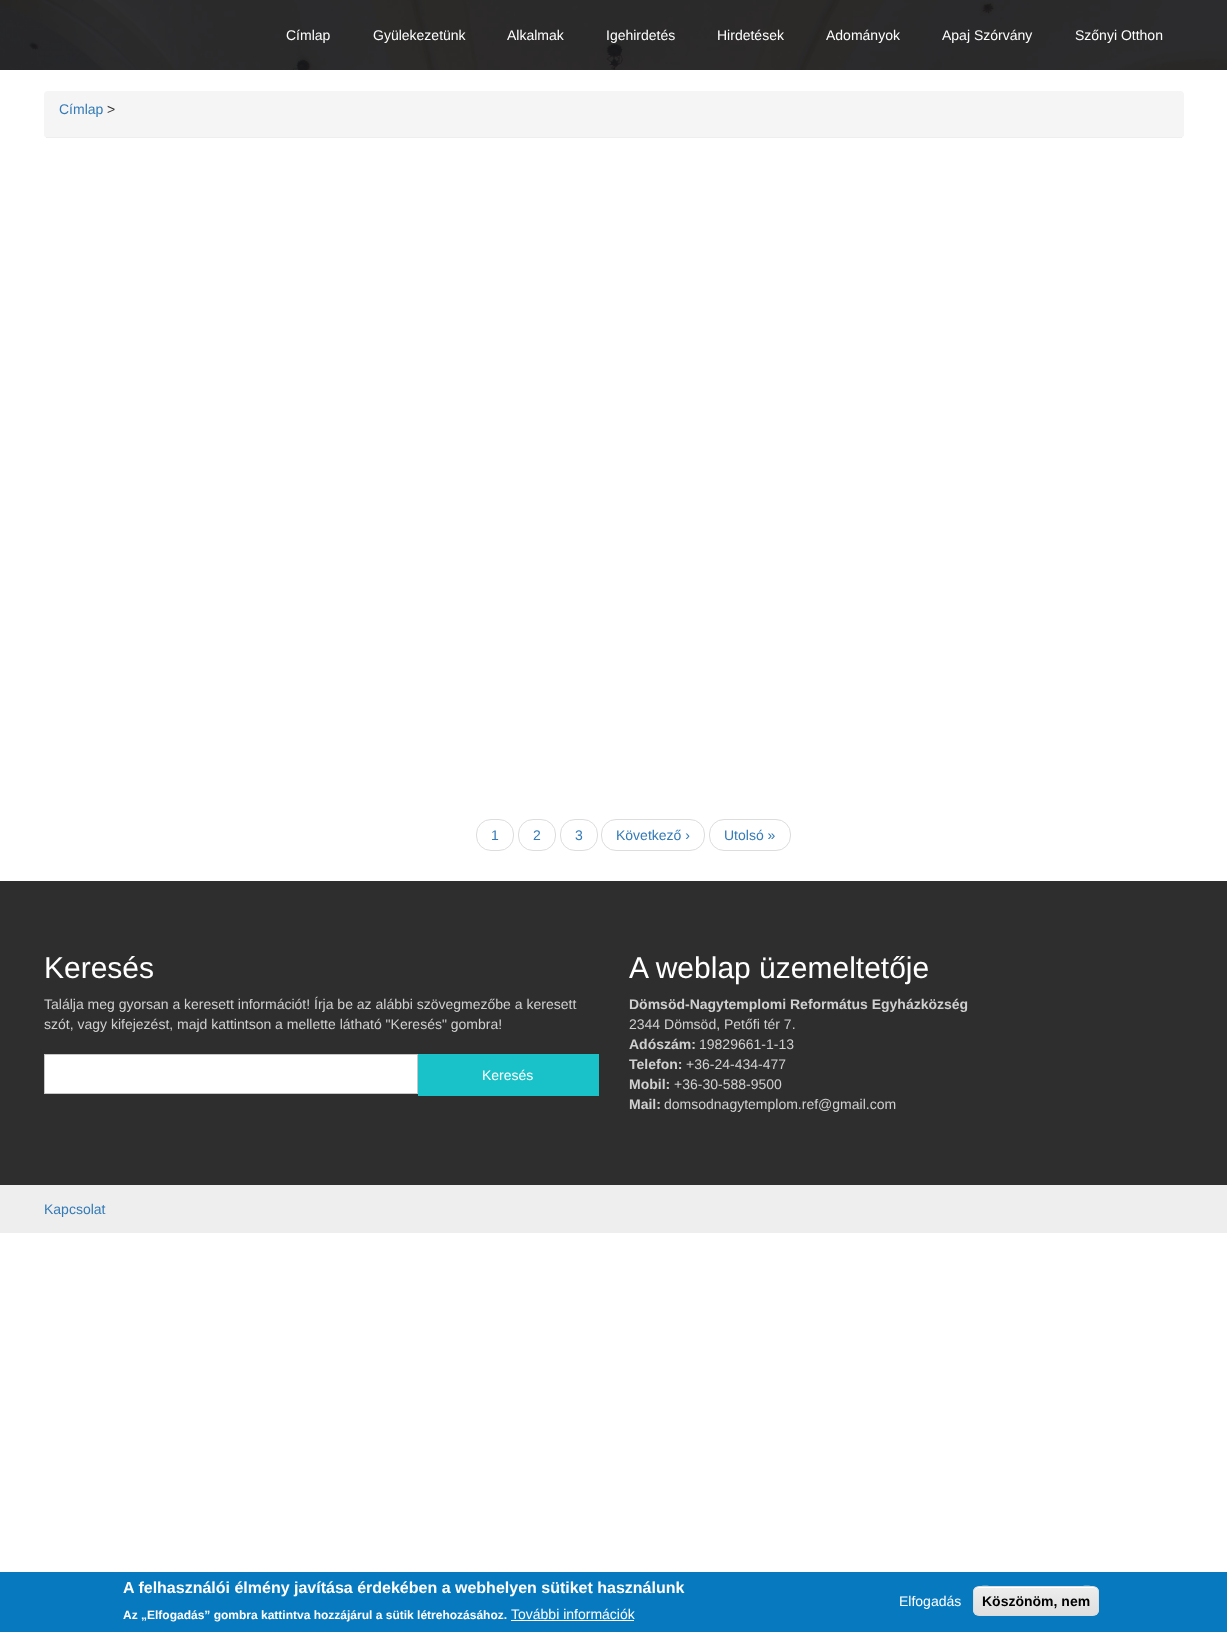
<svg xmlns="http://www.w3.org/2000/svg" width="1227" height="1632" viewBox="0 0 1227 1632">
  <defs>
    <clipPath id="clip1"><rect x="973" y="1586" width="126" height="30" rx="6"/></clipPath>
    <linearGradient id="g1" gradientUnits="userSpaceOnUse" x1="1036" y1="1587" x2="1036" y2="1615"><stop offset="0.05" stop-color="#ededed"/><stop offset="1" stop-color="#dfdfdf"/></linearGradient>
  </defs>
  <rect width="100%" height="100%" fill="#ffffff"/>
  <image x="0" y="0" width="1227" height="70" href="img1.png"/>
  <text x="286" y="40" font-family="Liberation Sans" font-size="14" fill="#ffffff">Címlap</text>
  <text x="373" y="40" font-family="Liberation Sans" font-size="14" fill="#ffffff">Gyülekezetünk</text>
  <text x="507" y="40" font-family="Liberation Sans" font-size="14" fill="#ffffff">Alkalmak</text>
  <text x="606" y="40" font-family="Liberation Sans" font-size="14" fill="#ffffff">Igehirdetés</text>
  <text x="717" y="40" font-family="Liberation Sans" font-size="14" fill="#ffffff">Hirdetések</text>
  <text x="826" y="40" font-family="Liberation Sans" font-size="14" fill="#ffffff">Adományok</text>
  <text x="942" y="40" font-family="Liberation Sans" font-size="14" fill="#ffffff">Apaj Szórvány</text>
  <text x="1075" y="40" font-family="Liberation Sans" font-size="14" fill="#ffffff">Szőnyi Otthon</text>
  <rect x="44" y="91" width="1140" height="47" rx="4" fill="#f5f5f5"/>
  <rect x="46" y="137" width="1136" height="1" fill="#eeeeee"/>
  <text x="59" y="114" font-family="Liberation Sans" font-size="14" fill="#337ab7">Címlap</text>
  <text x="107" y="114" font-family="Liberation Sans" font-size="14" fill="#333333">&gt;</text>
  <rect x="476.5" y="819.5" width="37" height="31" rx="14.5" fill="none" stroke="#dddddd"/>
  <text x="491" y="840" font-family="Liberation Sans" font-size="14" fill="#337ab7">1</text>
  <rect x="518.5" y="819.5" width="37" height="31" rx="14.5" fill="none" stroke="#dddddd"/>
  <text x="533" y="840" font-family="Liberation Sans" font-size="14" fill="#337ab7">2</text>
  <rect x="560.5" y="819.5" width="37" height="31" rx="14.5" fill="none" stroke="#dddddd"/>
  <text x="575" y="840" font-family="Liberation Sans" font-size="14" fill="#337ab7">3</text>
  <rect x="601.5" y="819.5" width="103" height="31" rx="14.5" fill="none" stroke="#dddddd"/>
  <text x="616" y="840" font-family="Liberation Sans" font-size="14" fill="#337ab7">Következő ›</text>
  <rect x="709.5" y="819.5" width="81" height="31" rx="14.5" fill="none" stroke="#dddddd"/>
  <text x="724" y="840" font-family="Liberation Sans" font-size="14" fill="#337ab7">Utolsó »</text>
  <rect x="0" y="881" width="1227" height="304" fill="#2e2e2e"/>
  <text x="44" y="978" font-family="Liberation Sans" font-size="30" fill="#ffffff">Keresés</text>
  <text x="44" y="1009" font-family="Liberation Sans" font-size="14" fill="#d0d0d0">Találja meg gyorsan a keresett információt! Írja be az alábbi szövegmezőbe a keresett</text>
  <text x="44" y="1029" font-family="Liberation Sans" font-size="14" fill="#d0d0d0">szót, vagy kifejezést, majd kattintson a mellette látható "Keresés" gombra!</text>
  <rect x="44.5" y="1054.5" width="373" height="39" fill="#ffffff" stroke="#c7c7c7"/>
  <rect x="418" y="1054" width="181" height="42" fill="#19c2c8"/>
  <text x="482" y="1080" font-family="Liberation Sans" font-size="14" fill="#ffffff">Keresés</text>
  <text x="629" y="978" font-family="Liberation Sans" font-size="30" fill="#ffffff">A weblap üzemeltetője</text>
  <text x="629" y="1009" font-family="Liberation Sans" font-size="14" font-weight="bold" fill="#d0d0d0">Dömsöd-Nagytemplomi Református Egyházközség</text>
  <text x="629" y="1029" font-family="Liberation Sans" font-size="14" fill="#d0d0d0">2344 Dömsöd, Petőfi tér 7.</text>
  <text x="629" y="1049" font-family="Liberation Sans" font-size="14" font-weight="bold" fill="#d0d0d0">Adószám:</text>
  <text x="699" y="1049" font-family="Liberation Sans" font-size="14" fill="#d0d0d0">19829661-1-13</text>
  <text x="629" y="1069" font-family="Liberation Sans" font-size="14" font-weight="bold" fill="#d0d0d0">Telefon:</text>
  <text x="686" y="1069" font-family="Liberation Sans" font-size="14" fill="#d0d0d0">+36-24-434-477</text>
  <text x="629" y="1089" font-family="Liberation Sans" font-size="14" font-weight="bold" fill="#d0d0d0">Mobil:</text>
  <text x="674" y="1089" font-family="Liberation Sans" font-size="14" fill="#d0d0d0">+36-30-588-9500</text>
  <text x="629" y="1109" font-family="Liberation Sans" font-size="14" font-weight="bold" fill="#d0d0d0">Mail:</text>
  <text x="664" y="1109" font-family="Liberation Sans" font-size="14" fill="#d0d0d0">domsodnagytemplom.ref@gmail.com</text>
  <rect x="0" y="1185" width="1227" height="48" fill="#eeeeee"/>
  <text x="44" y="1214" font-family="Liberation Sans" font-size="14" fill="#337ab7">Kapcsolat</text>
  <rect x="0" y="1572" width="1227" height="60" fill="#0779bf"/>
  <text x="123" y="1593" font-family="Liberation Sans" font-size="16" font-weight="bold" fill="#ffffff">A felhasználói élmény javítása érdekében a webhelyen sütiket használunk</text>
  <text x="123" y="1619" font-family="Liberation Sans" font-size="12" font-weight="bold" fill="#ffffff">Az „Elfogadás” gombra kattintva hozzájárul a sütik létrehozásához.</text>
  <text x="511" y="1619" font-family="Liberation Sans" font-size="14" fill="#ffffff">További információk</text>
  <rect x="511" y="1620" width="123" height="1" fill="#ffffff"/>
  <text x="899" y="1606" font-family="Liberation Sans" font-size="14" fill="#ffffff">Elfogadás</text>
  <g clip-path="url(#clip1)">
    <rect x="973" y="1587" width="126" height="28" fill="url(#g1)"/>
  </g>
  <path d="M979 1588H1093C1096 1588 1098 1590 1098 1593C1098 1582 1078 1587 1074 1587H998C994 1587 974 1582 974 1593C974 1590 976 1588 979 1588Z" fill="#ffffff"/>
  <rect x="973.5" y="1586.5" width="125" height="29" rx="5.5" fill="none" stroke="#dcdcdc"/>
  <text x="982" y="1606" font-family="Liberation Sans" font-size="14" font-weight="bold" fill="#000000">Köszönöm, nem</text>
</svg>
